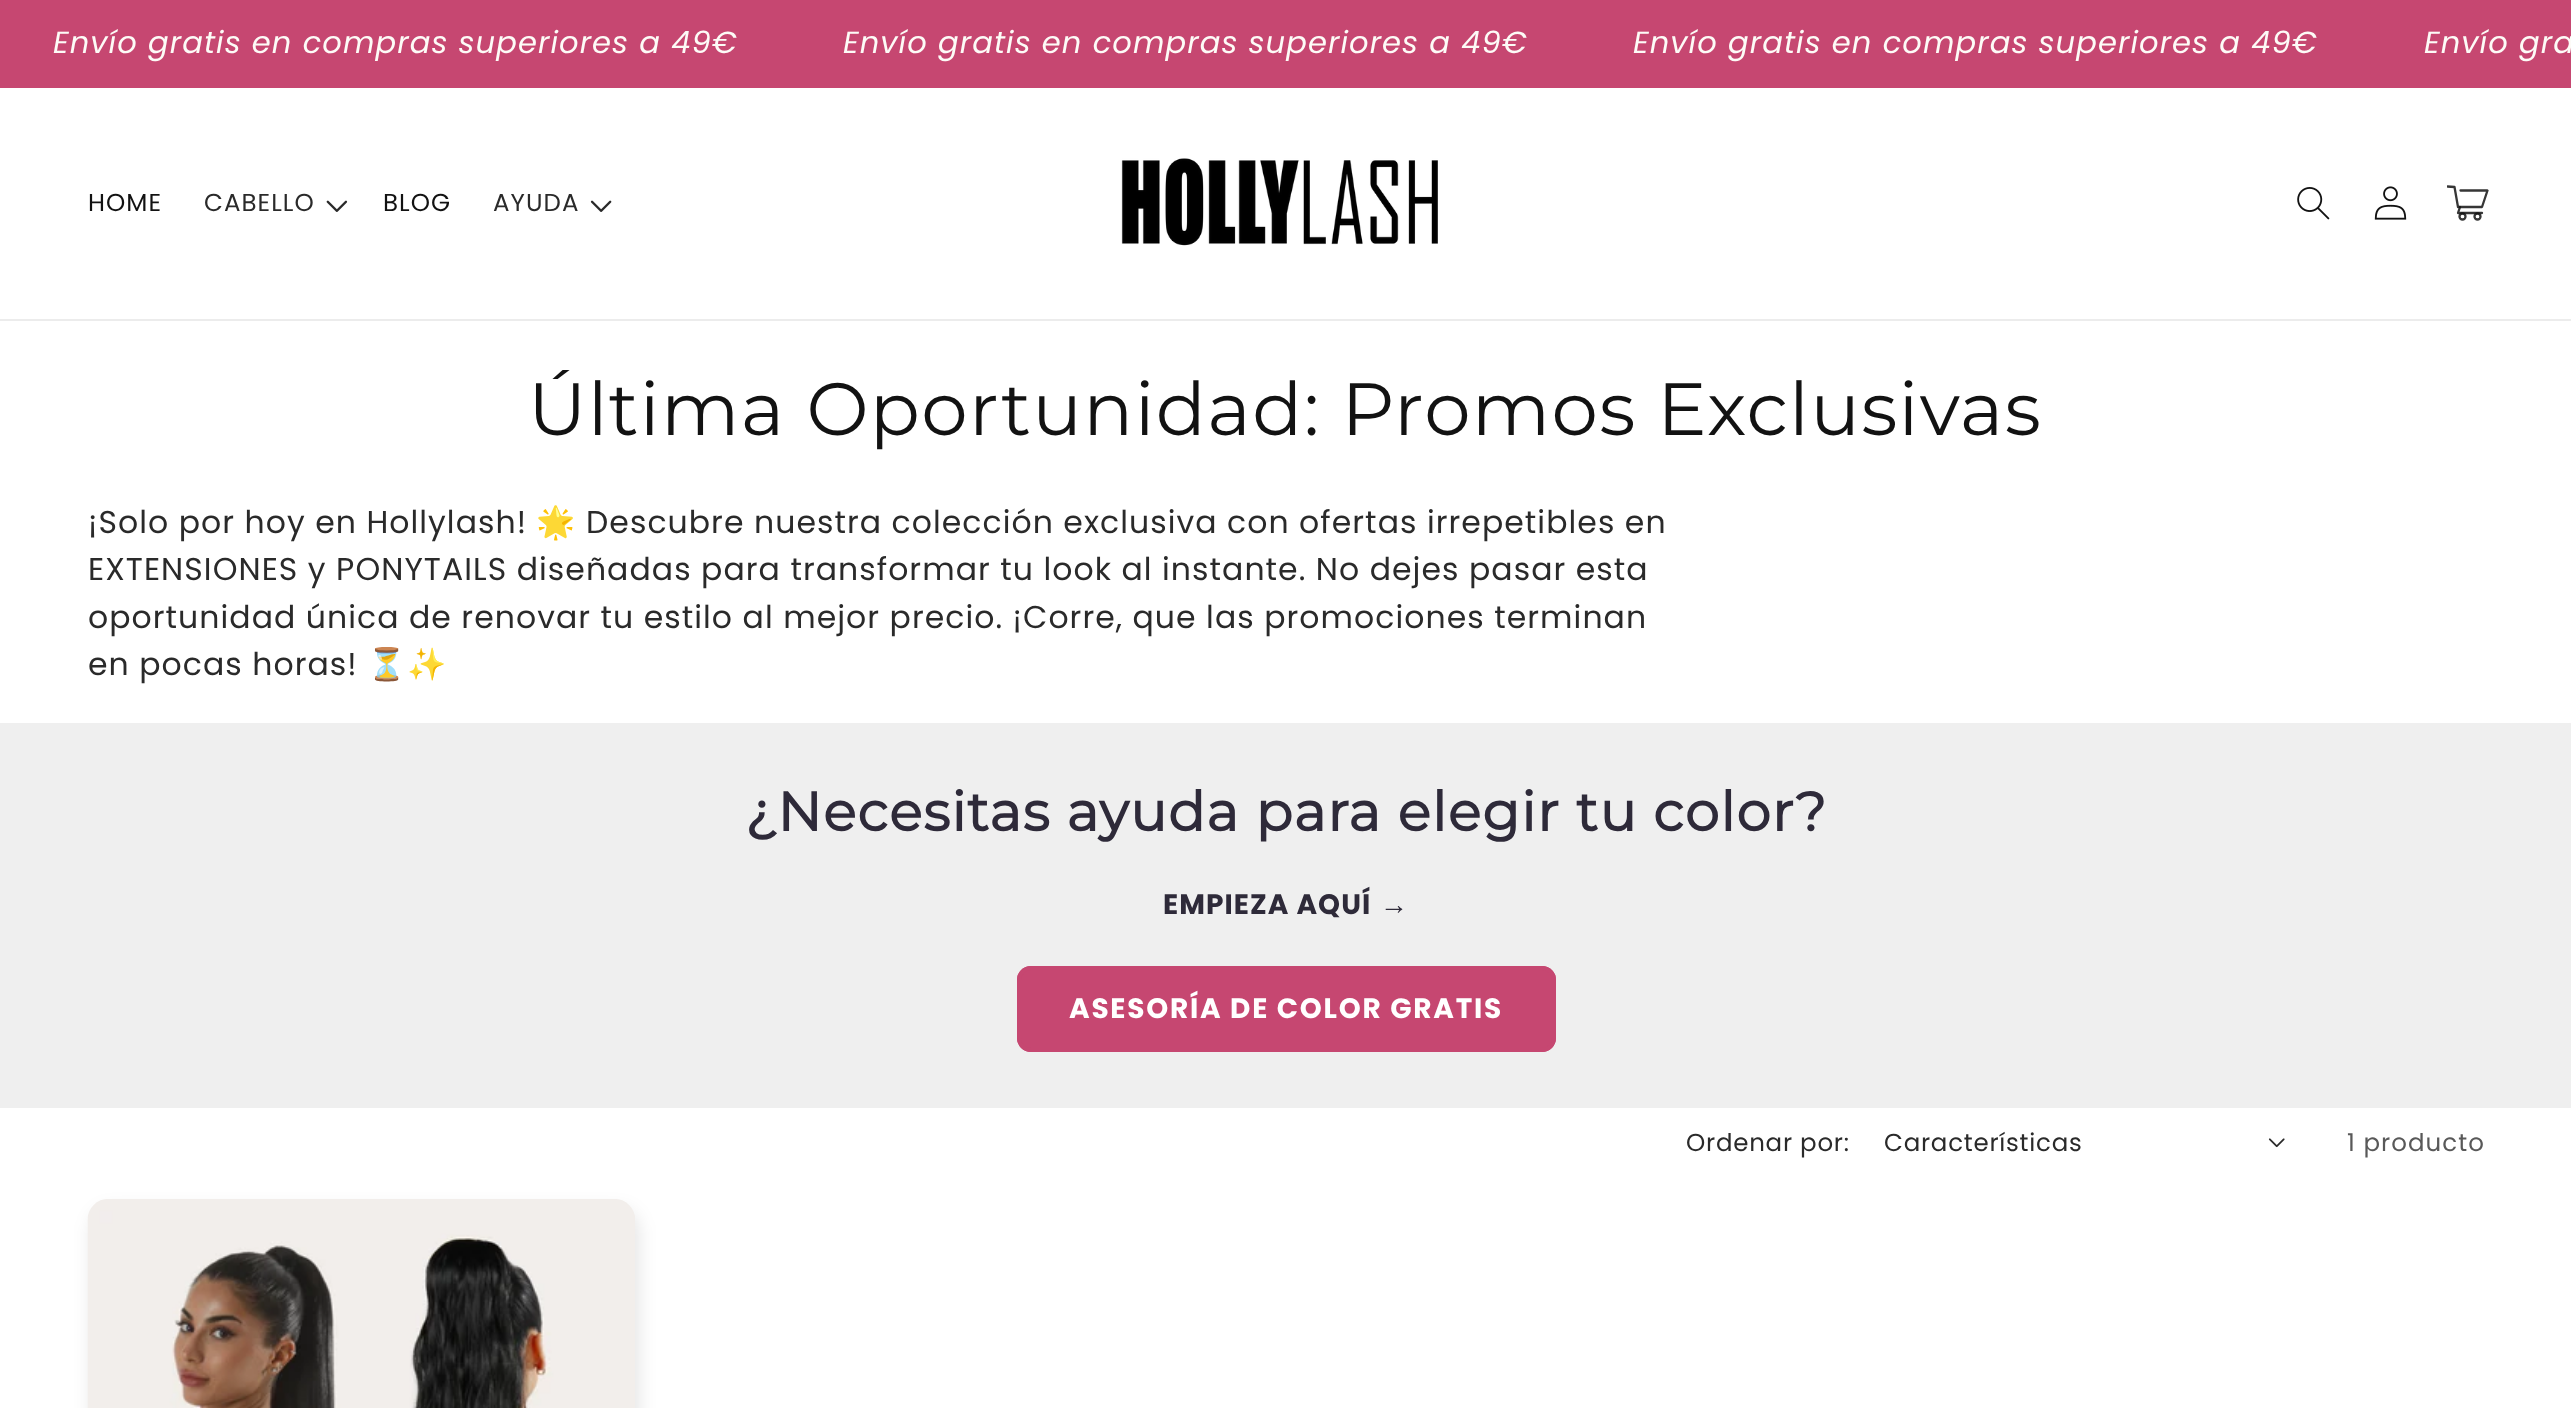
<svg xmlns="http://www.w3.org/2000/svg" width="2571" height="1408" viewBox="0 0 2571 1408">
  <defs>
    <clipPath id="clip1"><rect x="2447" y="182" width="42" height="42"/></clipPath>
    <filter id="blur1" x="-50%" y="-200%" width="200%" height="500%"><feGaussianBlur stdDeviation="9"/></filter>
  </defs>
  <rect width="100%" height="100%" fill="#ffffff"/>
  <rect x="0" y="0" width="2571" height="88" fill="#c64771"/>
  <text x="53" y="53" font-family="Poppins" font-size="30.6" font-style="italic" letter-spacing="1.05" fill="#fdfbf7">Envío gratis en compras superiores a 49€</text>
  <text x="843" y="53" font-family="Poppins" font-size="30.6" font-style="italic" letter-spacing="1.05" fill="#fdfbf7">Envío gratis en compras superiores a 49€</text>
  <text x="1633" y="53" font-family="Poppins" font-size="30.6" font-style="italic" letter-spacing="1.05" fill="#fdfbf7">Envío gratis en compras superiores a 49€</text>
  <text x="2424" y="53" font-family="Poppins" font-size="30.6" font-style="italic" letter-spacing="1.05" fill="#fdfbf7">Envío gra</text>
  <rect x="0" y="319" width="2571" height="2" fill="#ececec"/>
  <text x="88" y="211" font-family="Poppins" font-size="24.5" letter-spacing="1.05" fill="#121212">HOME</text>
  <text x="204" y="211" font-family="Poppins" font-size="24.5" letter-spacing="1.05" fill="#2a2a2a">CABELLO</text>
  <image x="326" y="200" width="22" height="12" href="img1.png"/>
  <text x="383" y="211" font-family="Poppins" font-size="24.5" letter-spacing="1.05" fill="#121212">BLOG</text>
  <text x="493" y="211" font-family="Poppins" font-size="24.5" letter-spacing="1.05" fill="#2a2a2a">AYUDA</text>
  <image x="590" y="200" width="22" height="12" href="img2.png"/>
  <image x="1121" y="158" width="317" height="88" href="img3.png"/>
  <image x="2297" y="187" width="33" height="33" href="img4.png"/>
  <image x="2374" y="186" width="33" height="34" href="img5.png"/>
  <g clip-path="url(#clip1)">
    <path d="M2447.5 186.5L2454.5 187L2458 207H2482L2487.5 190.5H2460.5" fill="none" stroke="#363636" stroke-width="2.3" stroke-linecap="round" stroke-linejoin="round"/>
  </g>
  <circle cx="2462.5" cy="216.5" r="3" fill="none" stroke="#363636" stroke-width="2.3"/>
  <circle cx="2477.5" cy="216.5" r="3" fill="none" stroke="#363636" stroke-width="2.3"/>
  <path d="M2482 213H2458L2460 207" fill="none" stroke="#121212" stroke-opacity="0.85" stroke-width="2.3" stroke-linecap="round" stroke-linejoin="round"/>
  <text x="528" y="435" font-family="Montserrat" font-size="73.9" font-weight="100" letter-spacing="1.35" fill="#121212">Última Oportunidad: Promos Exclusivas</text>
  <text x="88" y="533" font-family="Poppins" font-size="31.5" letter-spacing="1.05" fill="#2a2a2a">¡Solo por hoy en Hollylash!</text>
  <text x="536" y="533" font-family="Noto Color Emoji" font-size="31.5" letter-spacing="1.05" fill="#2a2a2a">🌟</text>
  <text x="586" y="533" font-family="Poppins" font-size="31.5" letter-spacing="1.05" fill="#2a2a2a">Descubre nuestra colección exclusiva con ofertas irrepetibles en</text>
  <text x="88" y="580" font-family="Poppins" font-size="31.5" letter-spacing="1.05" fill="#2a2a2a">EXTENSIONES y PONYTAILS diseñadas para transformar tu look al instante. No dejes pasar esta</text>
  <text x="88" y="628" font-family="Poppins" font-size="31.5" letter-spacing="1.05" fill="#2a2a2a">oportunidad única de renovar tu estilo al mejor precio. ¡Corre, que las promociones terminan</text>
  <text x="88" y="675" font-family="Poppins" font-size="31.5" letter-spacing="1.05" fill="#2a2a2a">en pocas horas!</text>
  <text x="367" y="675" font-family="Noto Color Emoji" font-size="31.5" letter-spacing="1.05" fill="#2a2a2a">⏳✨</text>
  <rect x="0" y="723" width="2571" height="385" fill="#efefef"/>
  <text x="745" y="831" font-family="Montserrat" font-size="54.6" font-weight="bold" letter-spacing="1.35" fill="#2e2a39">¿Necesitas ayuda para elegir tu color?</text>
  <text x="1163" y="914" font-family="Poppins" font-size="28" font-weight="bold" letter-spacing="1.05" fill="#2e2a39">EMPIEZA AQUÍ</text>
  <text x="1380" y="914" font-family="Liberation Sans" font-size="28" letter-spacing="1.05" fill="#2e2a39">→</text>
  <rect x="1017" y="966" width="539" height="86" rx="14" fill="#c64771"/>
  <rect x="1019" y="968" width="535" height="82" rx="12" fill="none" stroke="#c64771" stroke-width="4"/>
  <text x="1069" y="1018" font-family="Poppins" font-size="28" font-weight="bold" letter-spacing="1.75" fill="#ffffff">ASESORÍA DE COLOR GRATIS</text>
  <text x="1686" y="1151" font-family="Poppins" font-size="24.5" letter-spacing="0.75" fill="#2a2a2a">Ordenar por:</text>
  <text x="1884" y="1151" font-family="Poppins" font-size="24.5" letter-spacing="0.75" fill="#2a2a2a">Características</text>
  <image x="2268" y="1138" width="17" height="10" href="img6.png"/>
  <text x="2347" y="1151" font-family="Poppins" font-size="24.5" letter-spacing="1.05" fill="#595959">1 producto</text>
  <rect x="91" y="1209" width="548" height="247" rx="21" fill="#121212" fill-opacity="0.1" filter="url(#blur1)"/>
  <image x="87" y="1199" width="548" height="209" href="img7.png"/>
</svg>
